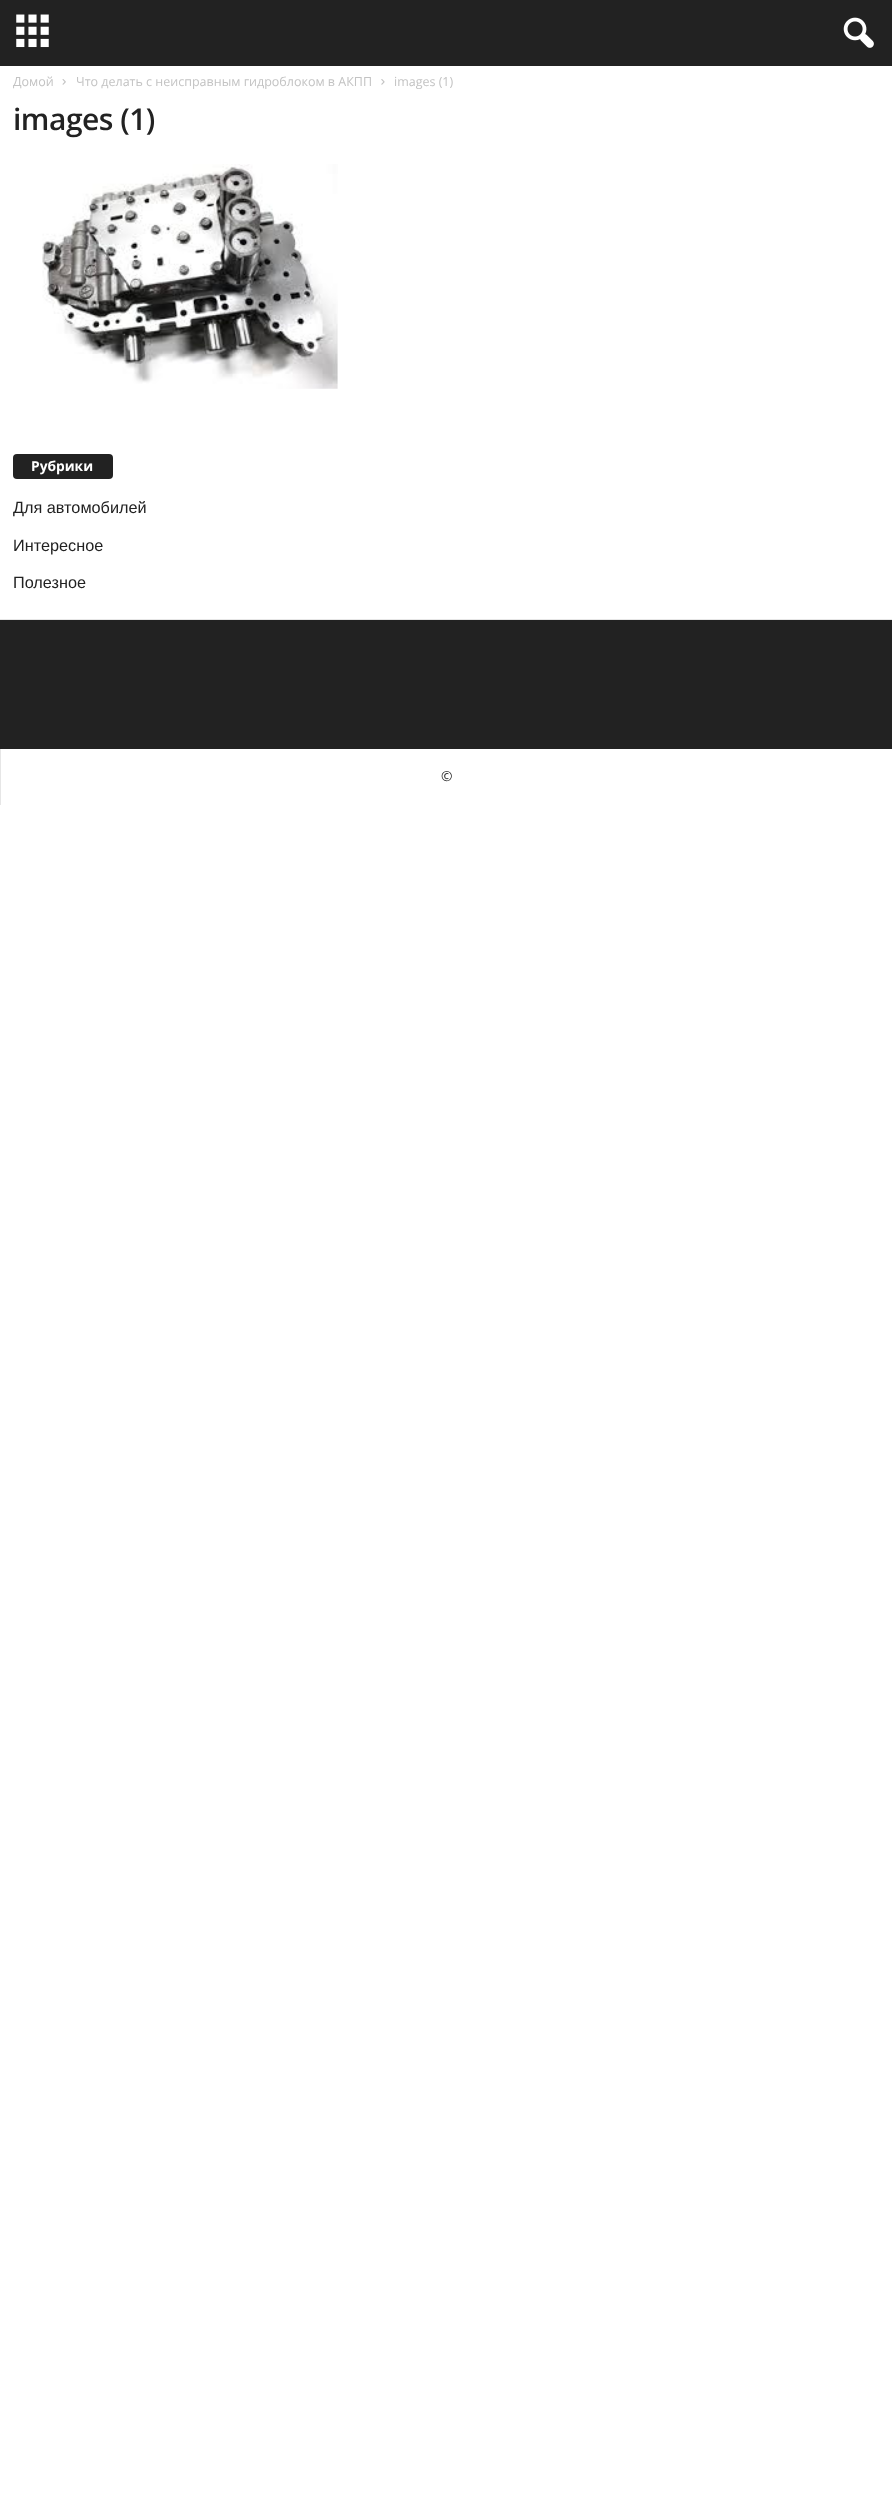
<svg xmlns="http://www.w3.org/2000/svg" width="892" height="2500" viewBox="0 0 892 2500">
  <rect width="100%" height="100%" fill="#ffffff"/>
  <rect x="0" y="0" width="892" height="66" fill="#222222"/>
  <image x="16" y="14" width="33" height="34" href="img1.png"/>
  <image x="843" y="17" width="31" height="31" href="img2.png"/>
  <rect x="0" y="619" width="892" height="1" fill="#e6e6e6"/>
  <text x="13" y="86" font-family="Open Sans" font-size="12.5" fill="#c3c3c3">Домой</text>
  <image x="62" y="79" width="4" height="6" href="img3.png"/>
  <text x="76" y="86" font-family="Open Sans" font-size="12.5" fill="#c3c3c3">Что делать с неисправным гидроблоком в АКПП</text>
  <image x="381" y="79" width="4" height="6" href="img4.png"/>
  <text x="394" y="86" font-family="Open Sans" font-size="12.5" fill="#c3c3c3">images (1)</text>
  <text x="13" y="130" font-family="Open Sans" font-size="30" font-weight="600" letter-spacing="-0.5" fill="#222222">images (1)</text>
  <image x="42" y="164" width="296" height="225" href="img5.png"/>
  <rect x="13" y="454" width="100" height="25" rx="4" fill="#222222"/>
  <text x="31" y="471" font-family="Open Sans" font-size="13.75" font-weight="bold" fill="#ffffff">Рубрики</text>
  <text x="13" y="513" font-family="Liberation Sans" font-size="16.25" fill="#222222">Для автомобилей</text>
  <text x="13" y="551" font-family="Liberation Sans" font-size="16.25" fill="#222222">Интересное</text>
  <text x="13" y="588" font-family="Liberation Sans" font-size="16.25" fill="#222222">Полезное</text>
  <rect x="0" y="620" width="892" height="129" fill="#222222"/>
  <rect x="0" y="749" width="1" height="56" fill="#e6e6e6"/>
  <text x="441" y="781" font-family="Open Sans" font-size="13.75" fill="#222222">©</text>
</svg>
